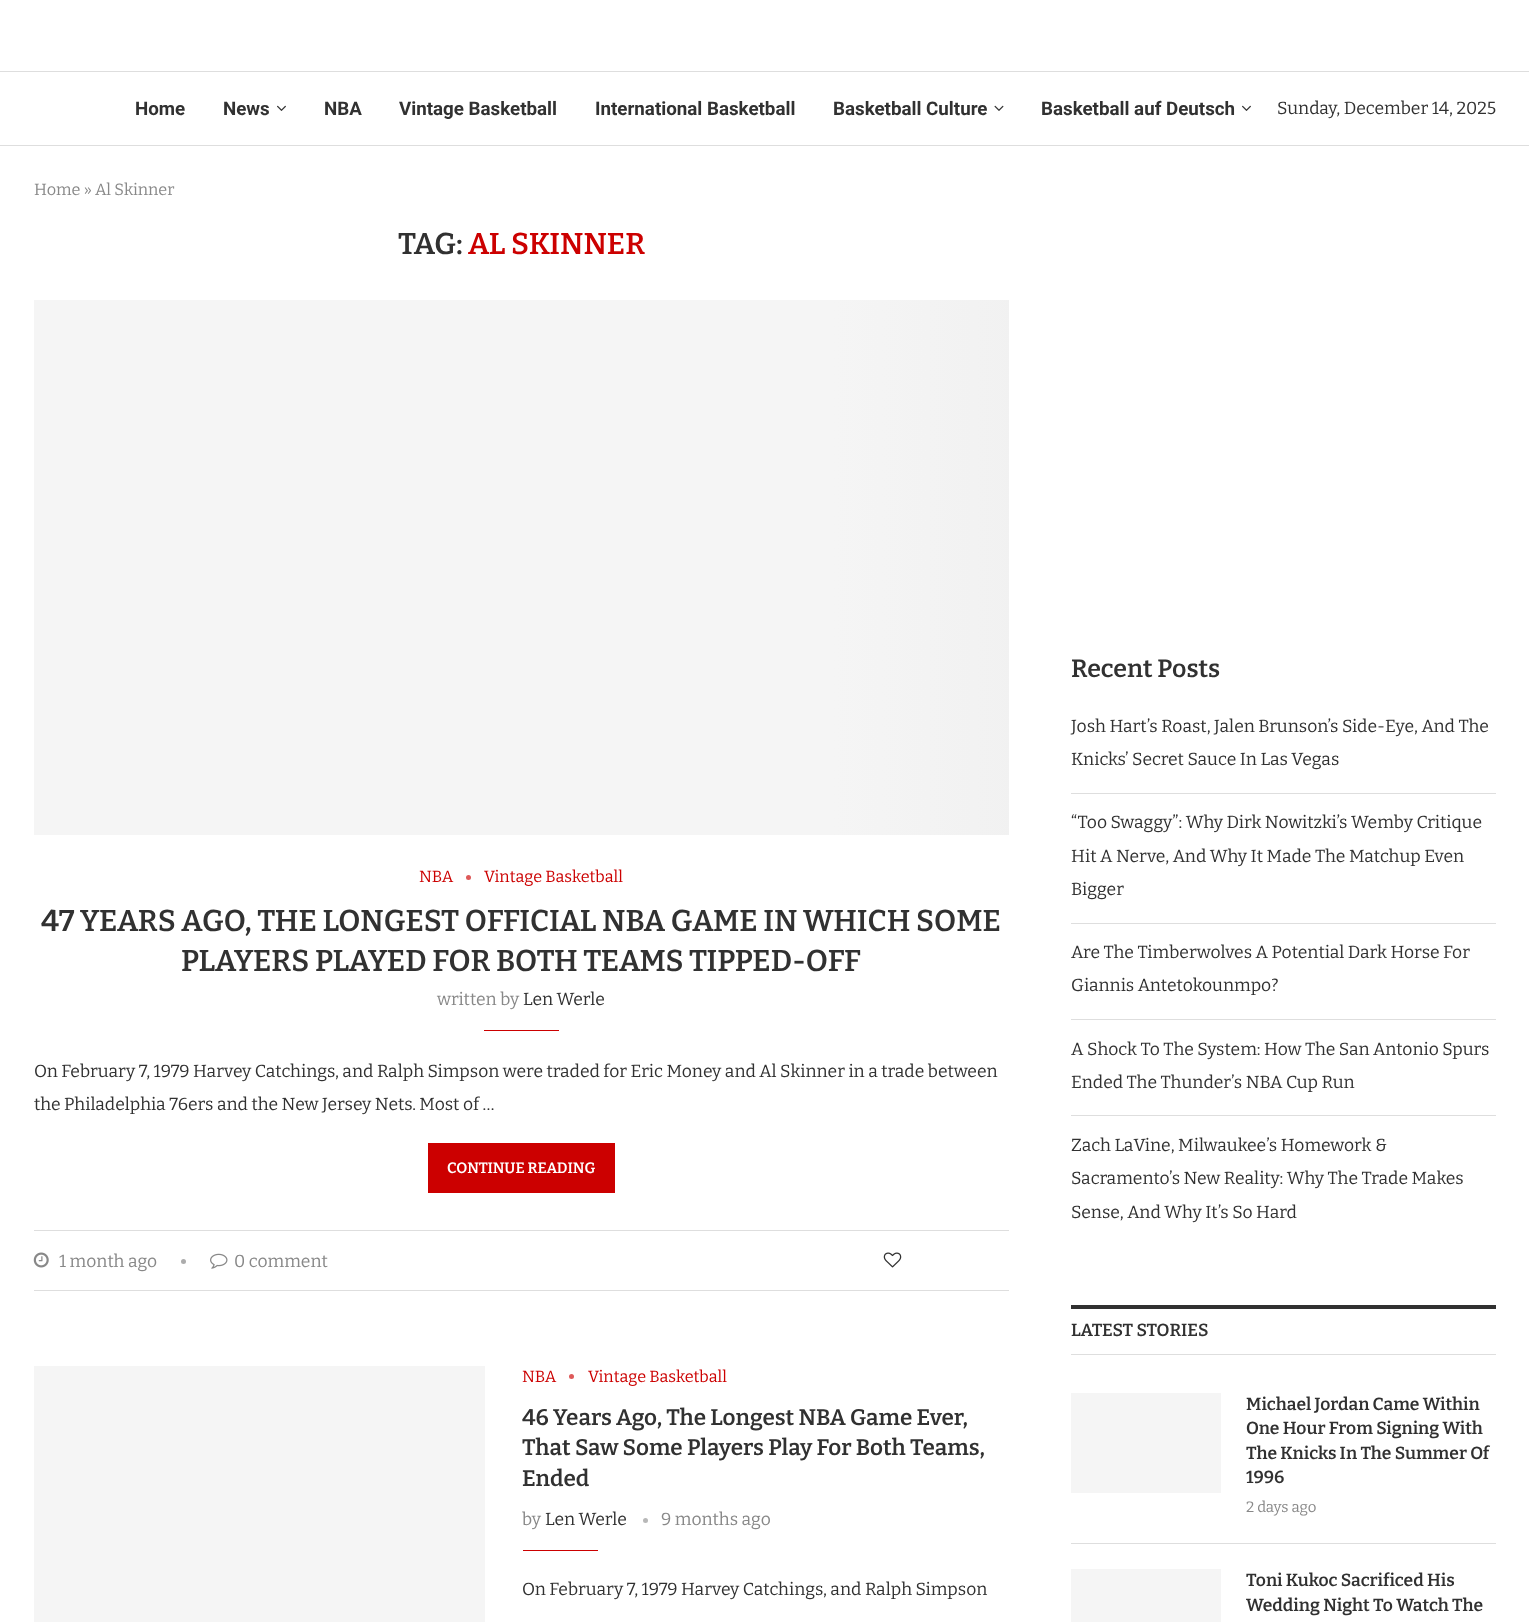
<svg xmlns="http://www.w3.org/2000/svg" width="1529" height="1622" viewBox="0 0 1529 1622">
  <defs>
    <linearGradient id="g1" gradientUnits="userSpaceOnUse" x1="1284" y1="1363" x2="159" y2="1363"><stop offset="0" stop-color="#f5f5f5"/><stop offset="0.15" stop-color="#efefef"/><stop offset="0.4" stop-color="#f5f5f5"/><stop offset="1" stop-color="#f5f5f5"/></linearGradient>
  </defs>
  <rect width="100%" height="100%" fill="#ffffff"/>
  <rect x="0" y="71" width="1529" height="1" fill="#dedede"/>
  <rect x="0" y="145" width="1529" height="1" fill="#dedede"/>
  <text x="135" y="115" font-family="Roboto" font-size="18.75" font-weight="bold" fill="#313131">Home</text>
  <text x="223" y="115" font-family="Roboto" font-size="18.75" font-weight="bold" fill="#313131">News</text>
  <image x="277" y="105" width="9" height="6" href="img1.png"/>
  <text x="324" y="115" font-family="Roboto" font-size="18.75" font-weight="bold" fill="#313131">NBA</text>
  <text x="399" y="115" font-family="Roboto" font-size="18.75" font-weight="bold" fill="#313131">Vintage Basketball</text>
  <text x="595" y="115" font-family="Roboto" font-size="18.75" font-weight="bold" fill="#313131">International Basketball</text>
  <text x="833" y="115" font-family="Roboto" font-size="18.75" font-weight="bold" fill="#313131">Basketball Culture</text>
  <image x="994" y="105" width="10" height="6" href="img2.png"/>
  <text x="1041" y="115" font-family="Roboto" font-size="18.75" font-weight="bold" fill="#313131">Basketball auf Deutsch</text>
  <image x="1242" y="105" width="9" height="6" href="img1.png"/>
  <text x="1277" y="114" font-family="Bitter" font-size="17.5" fill="#313131">Sunday, December 14, 2025</text>
  <text x="34" y="195" font-family="Bitter" font-size="16.25" fill="#888888">Home » Al Skinner</text>
  <text x="398" y="254" font-family="Bitter" font-size="30" font-weight="600" fill="#313131">TAG:</text>
  <text x="468" y="254" font-family="Bitter" font-size="30" font-weight="600" fill="#cc0000">AL SKINNER</text>
  <rect x="34" y="300" width="125" height="535" fill="#f5f5f5"/>
  <rect x="159" y="300" width="850" height="535" fill="url(#g1)"/>
  <text x="419" y="882" font-family="Bitter" font-size="16.25" fill="#cc0000">NBA</text>
  <circle cx="468.5" cy="877.5" r="2.5" fill="#de5959"/>
  <text x="484" y="882" font-family="Bitter" font-size="16.25" fill="#cc0000">Vintage Basketball</text>
  <text x="41" y="931" font-family="Bitter" font-size="30" font-weight="600" fill="#313131">47 YEARS AGO, THE LONGEST OFFICIAL NBA GAME IN WHICH SOME</text>
  <text x="181" y="971" font-family="Bitter" font-size="30" font-weight="600" fill="#313131">PLAYERS PLAYED FOR BOTH TEAMS TIPPED-OFF</text>
  <text x="437" y="1005" font-family="Bitter" font-size="17.5" fill="#888888">written by</text>
  <text x="523" y="1005" font-family="Bitter" font-size="17.5" fill="#313131">Len Werle</text>
  <rect x="484" y="1030" width="75" height="1" fill="#cc0000"/>
  <text x="34" y="1077" font-family="Bitter" font-size="17.5" fill="#313131">On February 7, 1979 Harvey Catchings, and Ralph Simpson were traded for Eric Money and Al Skinner in a trade between</text>
  <text x="34" y="1110" font-family="Bitter" font-size="17.5" fill="#313131">the Philadelphia 76ers and the New Jersey Nets. Most of …</text>
  <rect x="428" y="1143" width="187" height="50" fill="#cc0000"/>
  <text x="447" y="1173" font-family="Bitter" font-size="15" font-weight="600" fill="#ffffff">CONTINUE READING</text>
  <rect x="34" y="1230" width="975" height="1" fill="#dedede"/>
  <rect x="34" y="1290" width="975" height="1" fill="#dedede"/>
  <image x="33" y="1252" width="16" height="16" href="img3.png"/>
  <text x="59" y="1267" font-family="Bitter" font-size="17.5" fill="#888888">1 month ago</text>
  <circle cx="183.5" cy="1261.5" r="2.5" fill="#acacac"/>
  <image x="210" y="1253" width="18" height="16" href="img4.png"/>
  <text x="234" y="1267" font-family="Bitter" font-size="17.5" fill="#888888">0 comment</text>
  <image x="883" y="1252" width="19" height="16" href="img5.png"/>
  <rect x="34" y="1366" width="451" height="256" fill="#f5f5f5"/>
  <text x="522" y="1382" font-family="Bitter" font-size="16.25" fill="#cc0000">NBA</text>
  <circle cx="571.5" cy="1376.5" r="2.5" fill="#de5959"/>
  <text x="588" y="1382" font-family="Bitter" font-size="16.25" fill="#cc0000">Vintage Basketball</text>
  <text x="522" y="1425" font-family="Bitter" font-size="22.5" font-weight="600" fill="#313131">46 Years Ago, The Longest NBA Game Ever,</text>
  <text x="522" y="1455" font-family="Bitter" font-size="22.5" font-weight="600" fill="#313131">That Saw Some Players Play For Both Teams,</text>
  <text x="522" y="1486" font-family="Bitter" font-size="22.5" font-weight="600" fill="#313131">Ended</text>
  <text x="522" y="1525" font-family="Bitter" font-size="17.5" fill="#888888">by</text>
  <text x="545" y="1525" font-family="Bitter" font-size="17.5" fill="#313131">Len Werle</text>
  <circle cx="645.5" cy="1520.5" r="2.5" fill="#b8b8b8"/>
  <text x="661" y="1525" font-family="Bitter" font-size="17.5" fill="#888888">9 months ago</text>
  <rect x="523" y="1550" width="75" height="1" fill="#cc0000"/>
  <text x="522" y="1595" font-family="Bitter" font-size="17.5" fill="#313131">On February 7, 1979 Harvey Catchings, and Ralph Simpson</text>
  <text x="1071" y="677" font-family="Bitter" font-size="25" font-weight="600" fill="#313131">Recent Posts</text>
  <rect x="1071" y="793" width="425" height="1" fill="#dedede"/>
  <text x="1071" y="732" font-family="Bitter" font-size="17.5" fill="#313131">Josh Hart’s Roast, Jalen Brunson’s Side-Eye, And The</text>
  <text x="1071" y="765" font-family="Bitter" font-size="17.5" fill="#313131">Knicks’ Secret Sauce In Las Vegas</text>
  <rect x="1071" y="923" width="425" height="1" fill="#dedede"/>
  <text x="1071" y="828" font-family="Bitter" font-size="17.5" fill="#313131">“Too Swaggy”: Why Dirk Nowitzki’s Wemby Critique</text>
  <text x="1071" y="862" font-family="Bitter" font-size="17.5" fill="#313131">Hit A Nerve, And Why It Made The Matchup Even</text>
  <text x="1071" y="895" font-family="Bitter" font-size="17.5" fill="#313131">Bigger</text>
  <rect x="1071" y="1019" width="425" height="1" fill="#dedede"/>
  <text x="1071" y="958" font-family="Bitter" font-size="17.5" fill="#313131">Are The Timberwolves A Potential Dark Horse For</text>
  <text x="1071" y="991" font-family="Bitter" font-size="17.5" fill="#313131">Giannis Antetokounmpo?</text>
  <rect x="1071" y="1115" width="425" height="1" fill="#dedede"/>
  <text x="1071" y="1055" font-family="Bitter" font-size="17.5" fill="#313131">A Shock To The System: How The San Antonio Spurs</text>
  <text x="1071" y="1088" font-family="Bitter" font-size="17.5" fill="#313131">Ended The Thunder’s NBA Cup Run</text>
  <text x="1071" y="1151" font-family="Bitter" font-size="17.5" fill="#313131">Zach LaVine, Milwaukee’s Homework &amp;</text>
  <text x="1071" y="1184" font-family="Bitter" font-size="17.5" fill="#313131">Sacramento’s New Reality: Why The Trade Makes</text>
  <text x="1071" y="1218" font-family="Bitter" font-size="17.5" fill="#313131">Sense, And Why It’s So Hard</text>
  <rect x="1071" y="1305" width="425" height="4" fill="#313131"/>
  <rect x="1071" y="1354" width="425" height="1" fill="#dedede"/>
  <text x="1071" y="1336" font-family="Bitter" font-size="17.5" font-weight="600" fill="#313131">LATEST STORIES</text>
  <rect x="1071" y="1543" width="425" height="1" fill="#dedede"/>
  <rect x="1071" y="1393" width="150" height="100" fill="#f5f5f5"/>
  <text x="1246" y="1410" font-family="Bitter" font-size="17.5" font-weight="600" fill="#313131">Michael Jordan Came Within</text>
  <text x="1246" y="1434" font-family="Bitter" font-size="17.5" font-weight="600" fill="#313131">One Hour From Signing With</text>
  <text x="1246" y="1459" font-family="Bitter" font-size="17.5" font-weight="600" fill="#313131">The Knicks In The Summer Of</text>
  <text x="1246" y="1483" font-family="Bitter" font-size="17.5" font-weight="600" fill="#313131">1996</text>
  <text x="1246" y="1512" font-family="Bitter" font-size="15" fill="#888888">2 days ago</text>
  <rect x="1071" y="1569" width="150" height="53" fill="#f5f5f5"/>
  <text x="1246" y="1586" font-family="Bitter" font-size="17.5" font-weight="600" fill="#313131">Toni Kukoc Sacrificed His</text>
  <text x="1246" y="1611" font-family="Bitter" font-size="17.5" font-weight="600" fill="#313131">Wedding Night To Watch The</text>
</svg>
